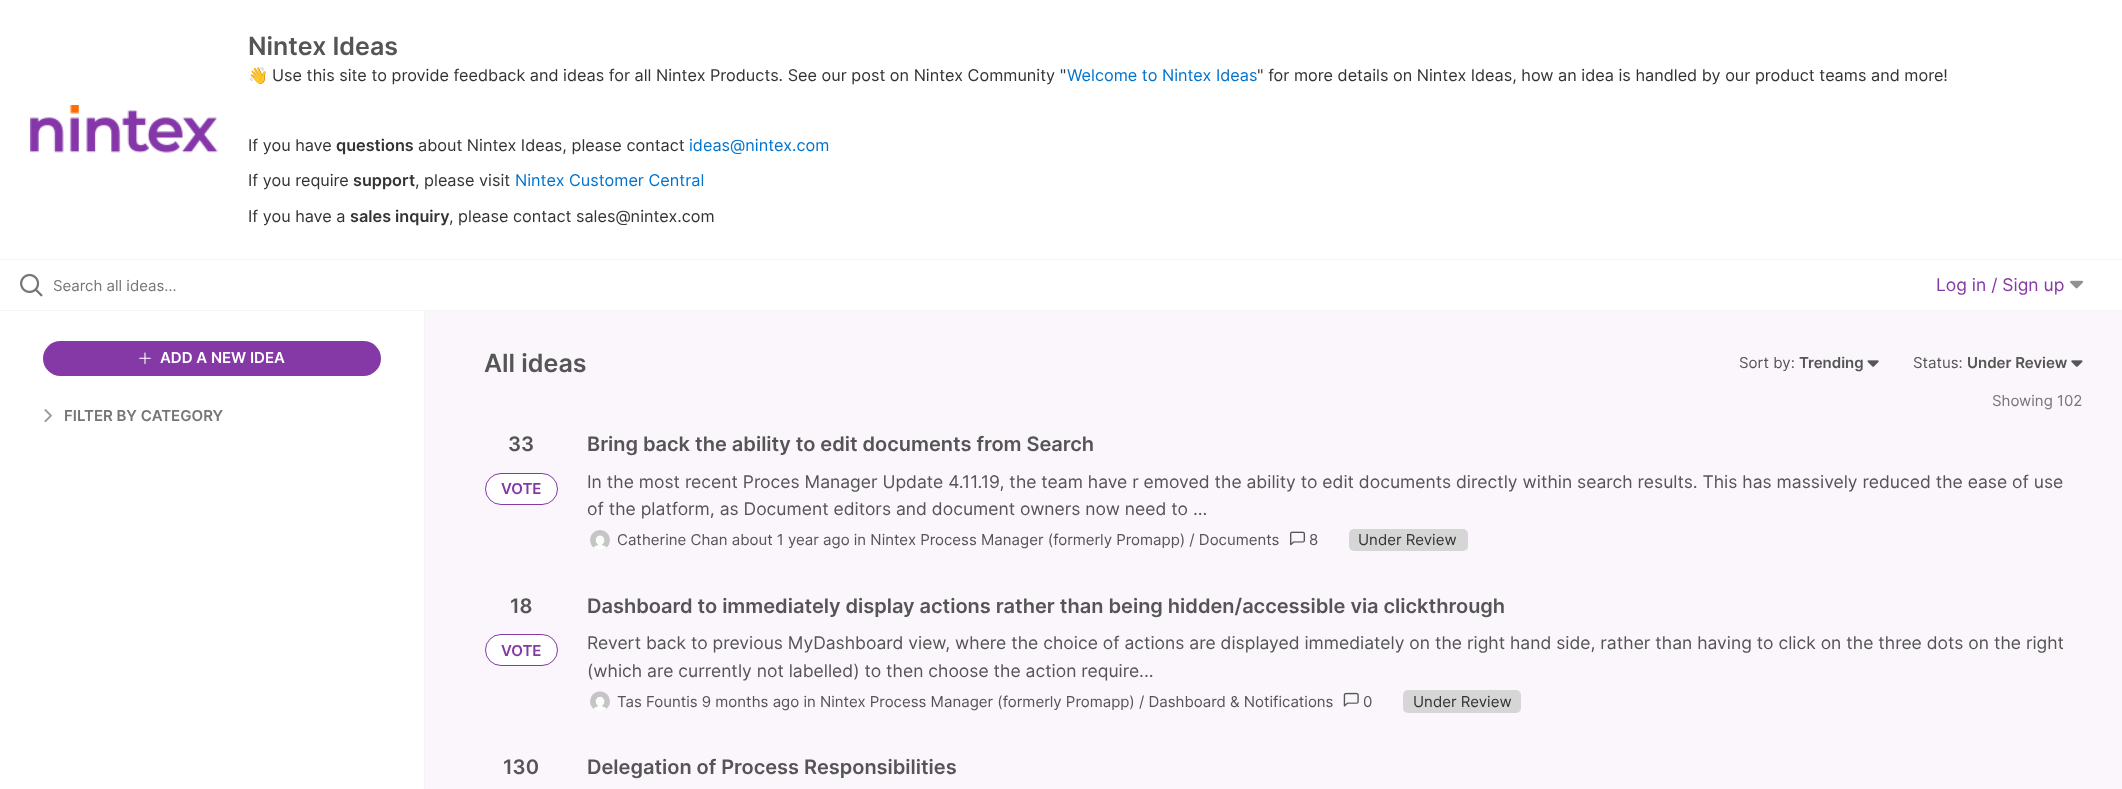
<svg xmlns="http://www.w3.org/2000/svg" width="2122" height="789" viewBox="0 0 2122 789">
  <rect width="100%" height="100%" fill="#faf6fb"/>
  <rect x="0" y="0" width="2122" height="259" fill="#ffffff"/>
  <rect x="0" y="259" width="2122" height="1" fill="#f4f4f4"/>
  <image x="30" y="105" width="188" height="48" href="img1.png"/>
  <text x="248" y="55" font-family="Inter" font-size="25" font-weight="600" fill="#555555">Nintex Ideas</text>
  <text x="248" y="81" font-family="Noto Color Emoji" font-size="16.25" fill="#000000">👋</text>
  <text x="272" y="81" font-family="Inter" font-size="16.25" fill="#333333">Use this site to provide feedback and ideas for all Nintex Products. See our post on Nintex Community "</text>
  <text x="1067" y="81" font-family="Inter" font-size="16.25" fill="#0073cf">Welcome to Nintex Ideas</text>
  <text x="1257" y="81" font-family="Inter" font-size="16.25" fill="#333333">" for more details on Nintex Ideas, how an idea is handled by our product teams and more!</text>
  <text x="248" y="151" font-family="Inter" font-size="16.25" fill="#333333">If you have</text>
  <text x="336" y="151" font-family="Inter" font-size="16.25" font-weight="600" fill="#333333">questions</text>
  <text x="418" y="151" font-family="Inter" font-size="16.25" fill="#333333">about Nintex Ideas, please contact</text>
  <text x="689" y="151" font-family="Inter" font-size="16.25" fill="#0073cf">ideas@nintex.com</text>
  <text x="248" y="186" font-family="Inter" font-size="16.25" fill="#333333">If you require</text>
  <text x="353" y="186" font-family="Inter" font-size="16.25" font-weight="600" fill="#333333">support</text>
  <text x="415" y="186" font-family="Inter" font-size="16.25" fill="#333333">, please visit</text>
  <text x="515" y="186" font-family="Inter" font-size="16.25" fill="#0073cf">Nintex Customer Central</text>
  <text x="248" y="222" font-family="Inter" font-size="16.25" fill="#333333">If you have a</text>
  <text x="350" y="222" font-family="Inter" font-size="16.25" font-weight="600" fill="#333333">sales inquiry</text>
  <text x="449" y="222" font-family="Inter" font-size="16.25" fill="#333333">, please contact sales@nintex.com</text>
  <rect x="0" y="260" width="2122" height="50" fill="#ffffff"/>
  <rect x="0" y="310" width="2122" height="1" fill="#f4f4f4"/>
  <image x="20" y="273" width="23" height="24" href="img2.png"/>
  <text x="53" y="291" font-family="Inter" font-size="15" fill="#767676">Search all ideas…</text>
  <text x="1936" y="291" font-family="Inter" font-size="17.5" fill="#8439a6">Log in / Sign up</text>
  <image x="2070" y="280" width="14" height="9" href="img3.png"/>
  <rect x="0" y="311" width="424" height="478" fill="#ffffff"/>
  <rect x="424" y="311" width="1" height="478" fill="#f4f4f4"/>
  <rect x="43" y="341" width="338" height="35" rx="17.5" fill="#8439a6"/>
  <image x="139" y="352" width="12" height="13" href="img4.png"/>
  <text x="160" y="363" font-family="Inter" font-size="15" font-weight="600" fill="#ffffff">ADD A NEW IDEA</text>
  <image x="44" y="409" width="8" height="14" href="img5.png"/>
  <text x="64" y="421" font-family="Inter" font-size="15" font-weight="600" fill="#767676">FILTER BY CATEGORY</text>
  <text x="484" y="372" font-family="Inter" font-size="25" font-weight="600" fill="#555555">All ideas</text>
  <text x="1739" y="368" font-family="Inter" font-size="15" fill="#555555">Sort by:</text>
  <text x="1799" y="368" font-family="Inter" font-size="15" font-weight="600" fill="#555555">Trending</text>
  <image x="1867" y="360" width="12" height="7" href="img6.png"/>
  <text x="1913" y="368" font-family="Inter" font-size="15" fill="#555555">Status:</text>
  <text x="1967" y="368" font-family="Inter" font-size="15" font-weight="600" fill="#555555">Under Review</text>
  <image x="2071" y="360" width="12" height="7" href="img7.png"/>
  <text x="1992" y="406" font-family="Inter" font-size="15" fill="#767676">Showing 102</text>
  <text x="508" y="451" font-family="Inter" font-size="20" font-weight="600" fill="#555555">33</text>
  <rect x="485.5" y="473.5" width="72" height="31" rx="15.5" fill="#ffffff" stroke="#8439a6"/>
  <text x="501" y="494" font-family="Inter" font-size="15" font-weight="600" fill="#8439a6">VOTE</text>
  <text x="587" y="451" font-family="Inter" font-size="20" font-weight="600" fill="#555555">Bring back the ability to edit documents from Search</text>
  <text x="587" y="488" font-family="Inter" font-size="17.5" fill="#555555">In the most recent Proces Manager Update 4.11.19, the team have r emoved the ability to edit documents directly within search results. This has massively reduced the ease of use</text>
  <text x="587" y="515" font-family="Inter" font-size="17.5" fill="#555555">of the platform, as Document editors and document owners now need to ...</text>
  <image x="590" y="530" width="20" height="20" href="img8.png"/>
  <text x="617" y="545" font-family="Inter" font-size="15" fill="#555555">Catherine Chan about 1 year ago in Nintex Process Manager (formerly Promapp) / Documents</text>
  <image x="1290" y="531" width="15" height="15" href="img9.png"/>
  <text x="1309" y="545" font-family="Inter" font-size="15" fill="#555555">8</text>
  <rect x="1349" y="529" width="119" height="22" rx="5" fill="#d6d6d6"/>
  <text x="1358" y="545" font-family="Inter" font-size="15" fill="#333333">Under Review</text>
  <text x="510" y="613" font-family="Inter" font-size="20" font-weight="600" fill="#555555">18</text>
  <rect x="485.5" y="634.5" width="72" height="31" rx="15.5" fill="#ffffff" stroke="#8439a6"/>
  <text x="501" y="656" font-family="Inter" font-size="15" font-weight="600" fill="#8439a6">VOTE</text>
  <text x="587" y="613" font-family="Inter" font-size="20" font-weight="600" fill="#555555">Dashboard to immediately display actions rather than being hidden/accessible via clickthrough</text>
  <text x="587" y="649" font-family="Inter" font-size="17.5" fill="#555555">Revert back to previous MyDashboard view, where the choice of actions are displayed immediately on the right hand side, rather than having to click on the three dots on the right</text>
  <text x="587" y="677" font-family="Inter" font-size="17.5" fill="#555555">(which are currently not labelled) to then choose the action require...</text>
  <image x="590" y="691" width="20" height="20" href="img10.png"/>
  <text x="617" y="707" font-family="Inter" font-size="15" fill="#555555">Tas Fountis 9 months ago in Nintex Process Manager (formerly Promapp) / Dashboard &amp; Notifications</text>
  <image x="1343" y="692" width="16" height="15" href="img11.png"/>
  <text x="1363" y="707" font-family="Inter" font-size="15" fill="#555555">0</text>
  <rect x="1403" y="690" width="118" height="23" rx="5" fill="#d6d6d6"/>
  <text x="1413" y="707" font-family="Inter" font-size="15" fill="#333333">Under Review</text>
  <text x="503" y="774" font-family="Inter" font-size="20" font-weight="600" fill="#555555">130</text>
  <text x="587" y="774" font-family="Inter" font-size="20" font-weight="600" fill="#555555">Delegation of Process Responsibilities</text>
</svg>
